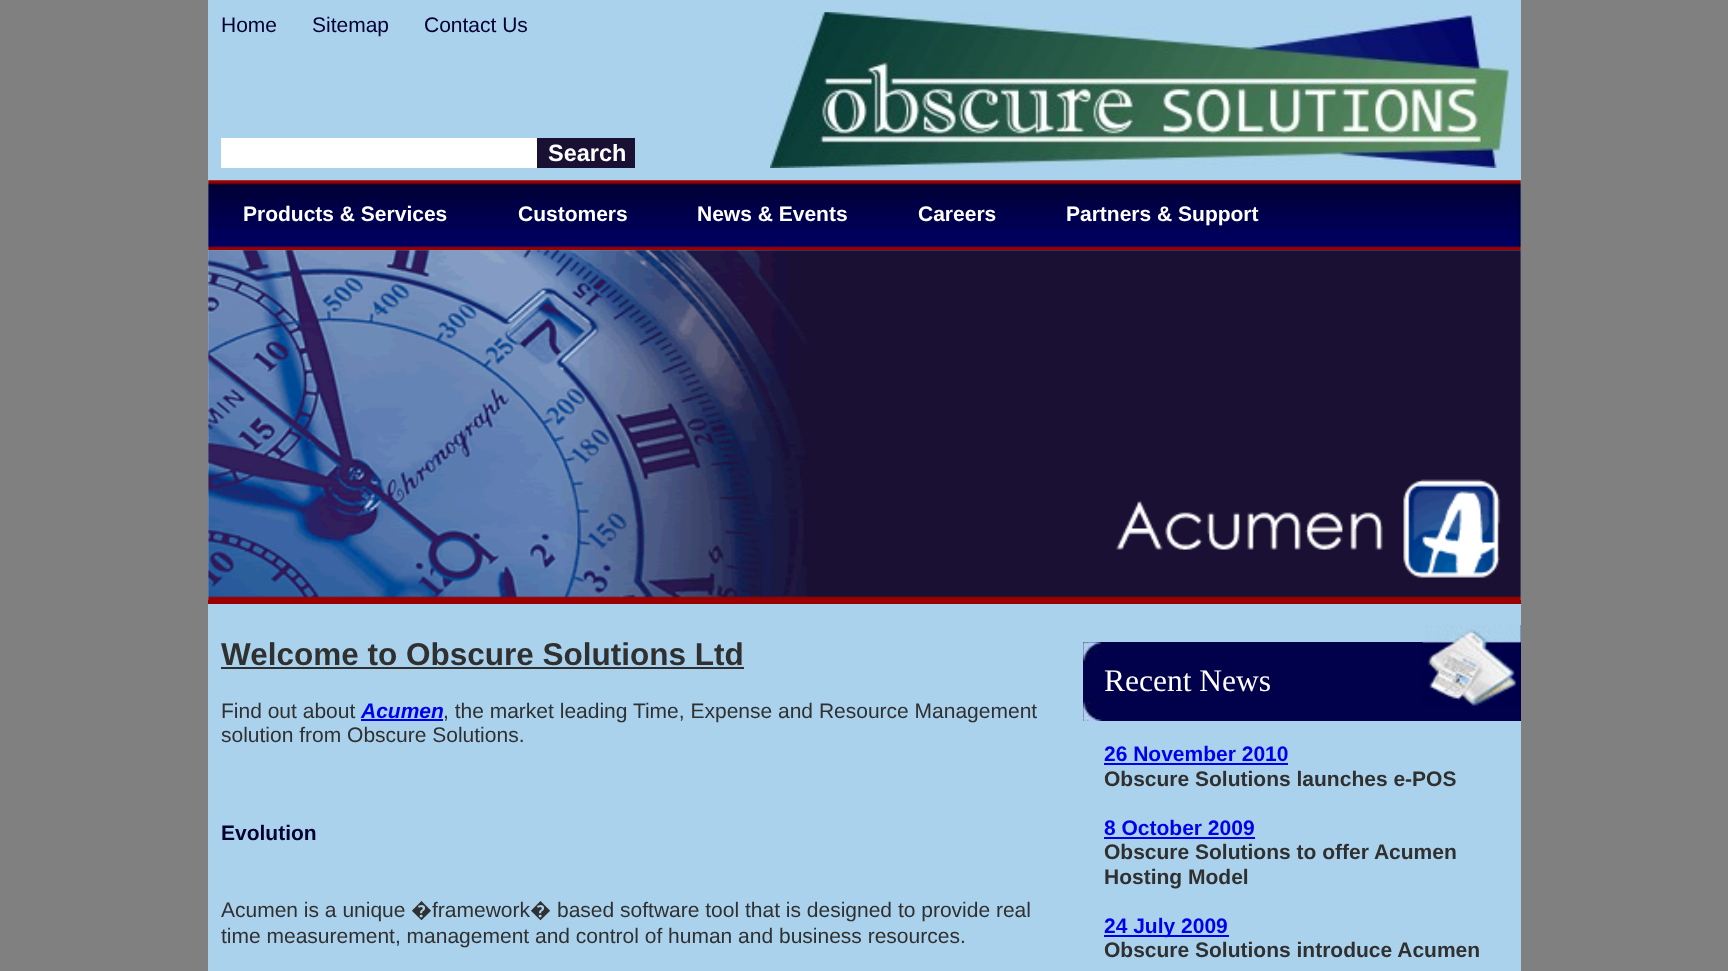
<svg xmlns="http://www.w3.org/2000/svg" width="1728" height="971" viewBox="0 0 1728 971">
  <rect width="100%" height="100%" fill="#808080"/>
  <rect x="208" y="0" width="1313" height="971" fill="#aad2ec"/>
  <text x="221" y="32" font-family="Liberation Sans" font-size="21" fill="#000033">Home</text>
  <text x="312" y="32" font-family="Liberation Sans" font-size="21" fill="#000033">Sitemap</text>
  <text x="424" y="32" font-family="Liberation Sans" font-size="21" fill="#000033">Contact Us</text>
  <image x="770" y="12" width="739" height="156" href="img1.png"/>
  <rect x="221" y="138" width="316" height="30" fill="#ffffff"/>
  <rect x="537" y="138" width="98" height="30" fill="#1a1033"/>
  <text x="548" y="161" font-family="Liberation Sans" font-size="23.5" font-weight="bold" fill="#ffffff">Search</text>
  <image x="208" y="180" width="1313" height="71" href="img2.png"/>
  <text x="243" y="221" font-family="Liberation Sans" font-size="21" font-weight="bold" fill="#ffffff">Products &amp; Services</text>
  <text x="518" y="221" font-family="Liberation Sans" font-size="21" font-weight="bold" fill="#ffffff">Customers</text>
  <text x="697" y="221" font-family="Liberation Sans" font-size="21" font-weight="bold" fill="#ffffff">News &amp; Events</text>
  <text x="918" y="221" font-family="Liberation Sans" font-size="21" font-weight="bold" fill="#ffffff">Careers</text>
  <text x="1066" y="221" font-family="Liberation Sans" font-size="21" font-weight="bold" fill="#ffffff">Partners &amp; Support</text>
  <image x="208" y="250" width="1313" height="350" href="img3.png"/>
  <rect x="208" y="600" width="1313" height="4" fill="#9c0000"/>
  <text x="221" y="665" font-family="Liberation Sans" font-size="31.5" font-weight="bold" fill="#303030">Welcome to Obscure Solutions Ltd</text>
  <rect x="221" y="667" width="523" height="2" fill="#303030"/>
  <text x="221" y="718" font-family="Liberation Sans" font-size="21" fill="#303030">Find out about</text>
  <text x="361" y="718" font-family="Liberation Sans" font-size="21" font-weight="bold" font-style="italic" fill="#0000ee">Acumen</text>
  <rect x="361" y="719" width="82" height="2" fill="#0000ee"/>
  <text x="443" y="718" font-family="Liberation Sans" font-size="21" fill="#303030">, the market leading Time, Expense and Resource Management</text>
  <text x="221" y="742" font-family="Liberation Sans" font-size="21" fill="#303030">solution from Obscure Solutions.</text>
  <text x="221" y="840" font-family="Liberation Sans" font-size="21" font-weight="bold" fill="#000033">Evolution</text>
  <text x="221" y="917" font-family="Liberation Sans" font-size="21" fill="#303030">Acumen is a unique</text>
  <text x="411" y="917" font-family="Noto Sans" font-size="21" fill="#303030">�</text>
  <text x="432" y="917" font-family="Liberation Sans" font-size="21" fill="#303030">framework</text>
  <text x="530" y="917" font-family="Noto Sans" font-size="21" fill="#303030">�</text>
  <text x="557" y="917" font-family="Liberation Sans" font-size="21" fill="#303030">based software tool that is designed to provide real</text>
  <text x="221" y="943" font-family="Liberation Sans" font-size="21" fill="#303030">time measurement, management and control of human and business resources.</text>
  <rect x="1083" y="642" width="340" height="79" fill="#01014b"/>
  <image x="1083" y="642" width="21" height="21" href="img4.png"/>
  <rect x="1423" y="625" width="98" height="96" fill="#01014b"/>
  <image x="1422" y="625" width="99" height="81" href="img5.png"/>
  <text x="1104" y="691" font-family="Liberation Serif" font-size="31.5" fill="#ffffff">Recent News</text>
  <image x="1083" y="700" width="21" height="21" href="img6.png"/>
  <text x="1104" y="761" font-family="Liberation Sans" font-size="21" font-weight="bold" fill="#0000ee">26 November 2010</text>
  <rect x="1104" y="763" width="184" height="2" fill="#0000ee"/>
  <text x="1104" y="786" font-family="Liberation Sans" font-size="21" font-weight="bold" fill="#303030">Obscure Solutions launches e-POS</text>
  <text x="1104" y="835" font-family="Liberation Sans" font-size="21" font-weight="bold" fill="#0000ee">8 October 2009</text>
  <rect x="1104" y="837" width="151" height="2" fill="#0000ee"/>
  <text x="1104" y="859" font-family="Liberation Sans" font-size="21" font-weight="bold" fill="#303030">Obscure Solutions to offer Acumen</text>
  <text x="1104" y="884" font-family="Liberation Sans" font-size="21" font-weight="bold" fill="#303030">Hosting Model</text>
  <rect x="1104" y="935" width="125" height="2" fill="#0000ee"/>
  <text x="1104" y="933" font-family="Liberation Sans" font-size="21" font-weight="bold" fill="#0000ee">24 July 2009</text>
  <text x="1104" y="957" font-family="Liberation Sans" font-size="21" font-weight="bold" fill="#303030">Obscure Solutions introduce Acumen</text>
</svg>
